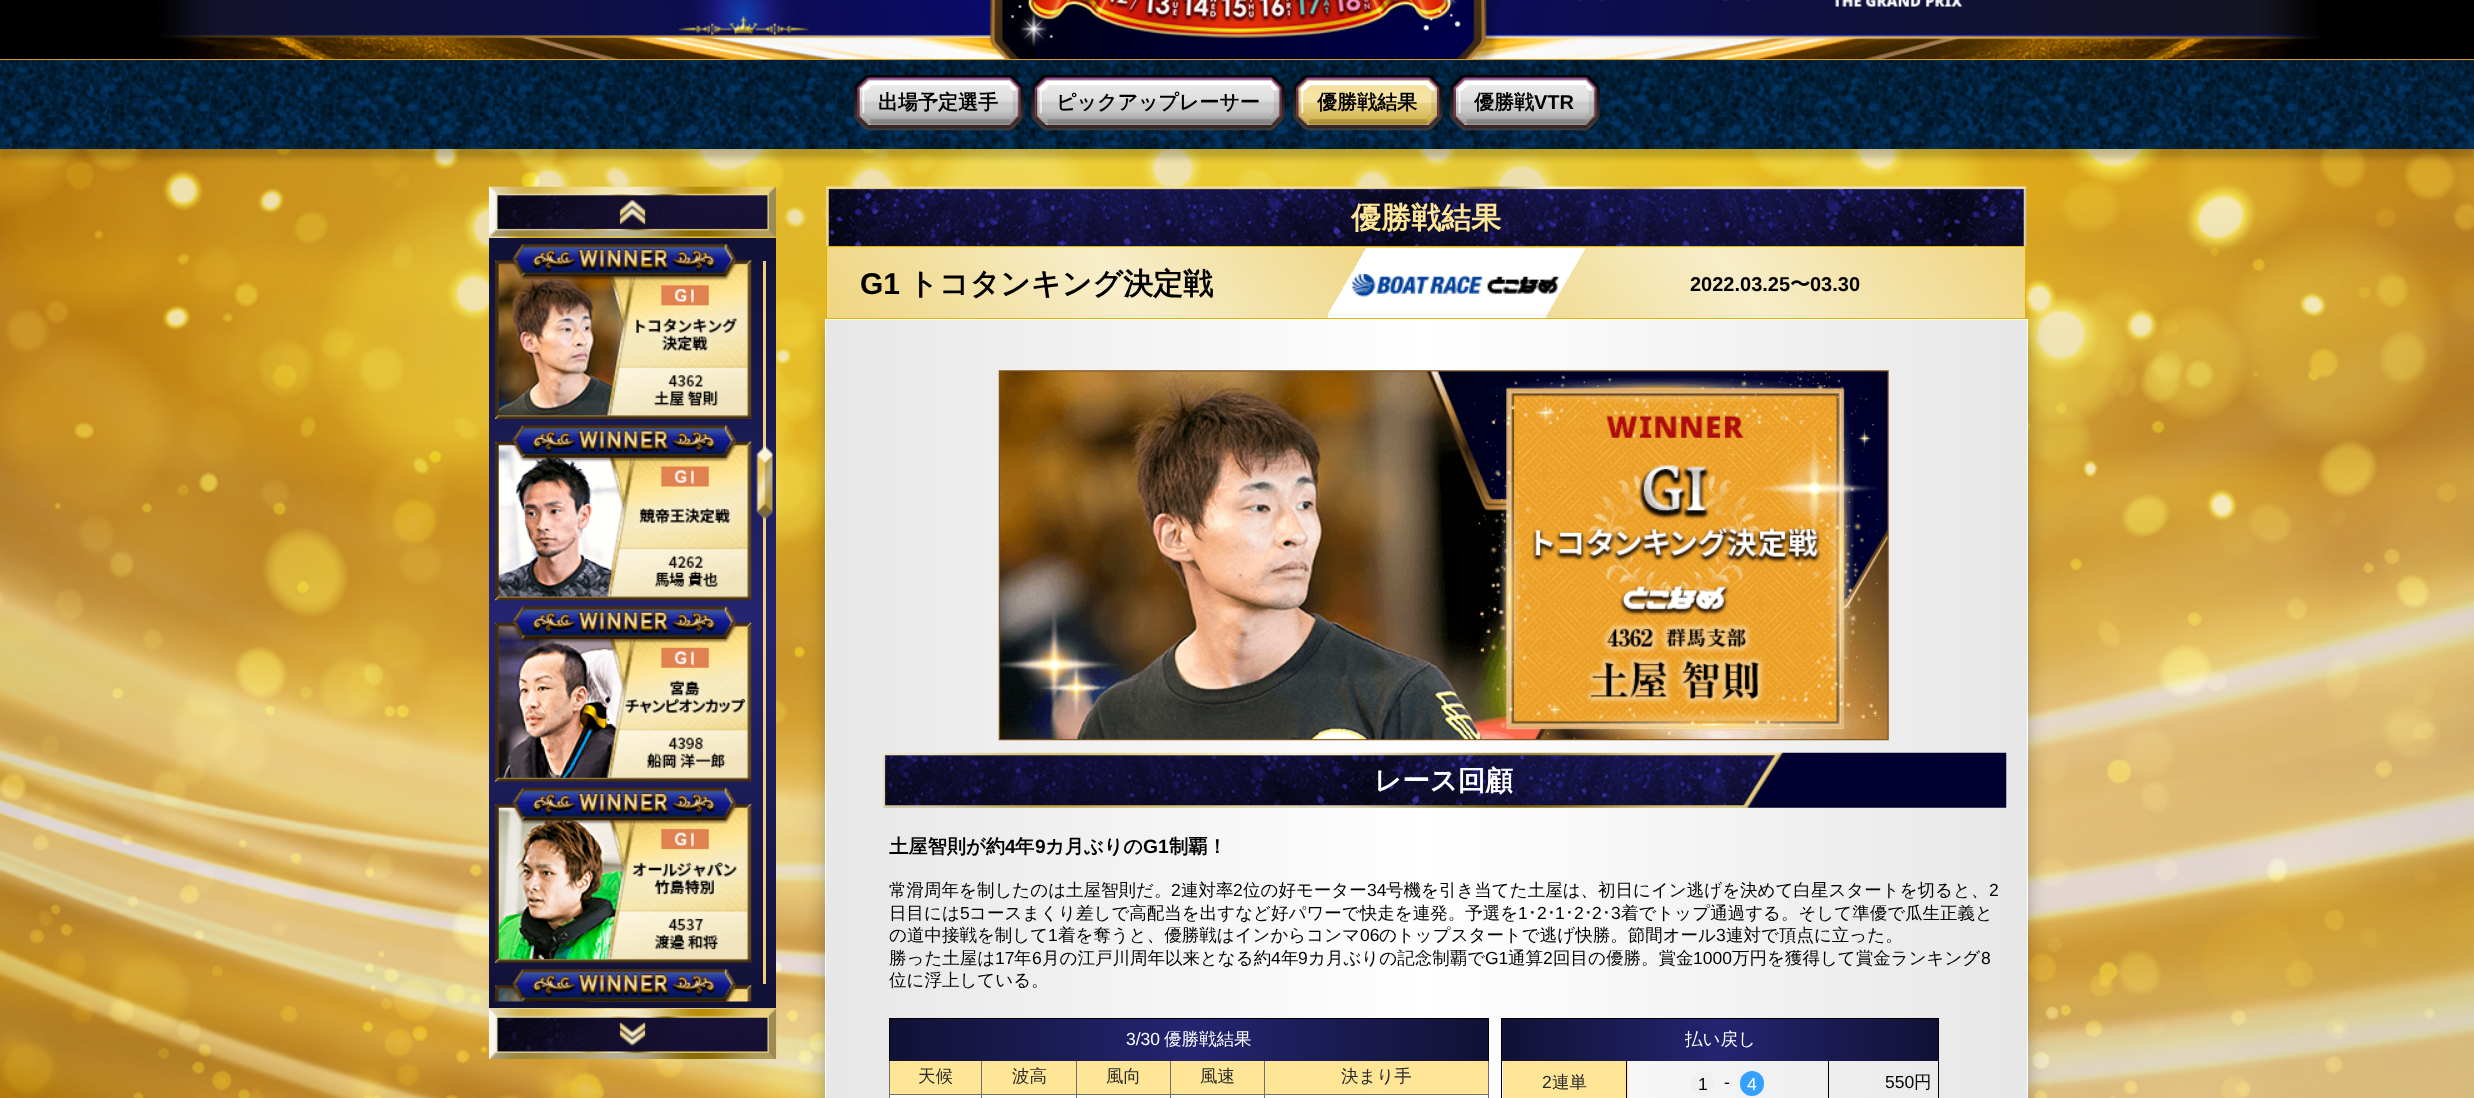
<svg xmlns="http://www.w3.org/2000/svg" width="2474" height="1098" viewBox="0 0 2474 1098">
  <defs>
    <filter id="blur1" x="-50%" y="-200%" width="200%" height="500%"><feGaussianBlur stdDeviation="3"/></filter>
    <filter id="blur2" x="-50%" y="-200%" width="200%" height="500%"><feGaussianBlur stdDeviation="12.5"/></filter>
    <linearGradient id="g1" gradientUnits="userSpaceOnUse" x1="826" y1="851" x2="2026" y2="851"><stop offset="0" stop-color="#e7e7e7"/><stop offset="0.5" stop-color="#ffffff"/><stop offset="1" stop-color="#e7e7e7"/></linearGradient>
    <linearGradient id="g2" gradientUnits="userSpaceOnUse" x1="2026" y1="851" x2="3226" y2="851"><stop offset="0" stop-color="#e7e7e7"/><stop offset="0.5" stop-color="#ffffff"/><stop offset="1" stop-color="#e7e7e7"/></linearGradient>
    <linearGradient id="g3" gradientUnits="userSpaceOnUse" x1="633" y1="1008" x2="633" y2="238"><stop offset="0" stop-color="#111135"/><stop offset="0.5" stop-color="#242471"/><stop offset="1" stop-color="#111135"/></linearGradient>
    <linearGradient id="g4" gradientUnits="userSpaceOnUse" x1="-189" y1="505" x2="647" y2="-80"><stop offset="0" stop-color="#efd580"/><stop offset="0.25" stop-color="#f7edc9"/><stop offset="0.5" stop-color="#efd580"/><stop offset="0.75" stop-color="#f7edc9"/><stop offset="1" stop-color="#efd580"/></linearGradient>
    <linearGradient id="g5" gradientUnits="userSpaceOnUse" x1="1008" y1="505" x2="1844" y2="-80"><stop offset="0" stop-color="#efd580"/><stop offset="0.25" stop-color="#f7edc9"/><stop offset="0.5" stop-color="#efd580"/><stop offset="0.75" stop-color="#f7edc9"/><stop offset="1" stop-color="#efd580"/></linearGradient>
    <linearGradient id="g6" gradientUnits="userSpaceOnUse" x1="-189" y1="575" x2="647" y2="-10"><stop offset="0" stop-color="#efd580"/><stop offset="0.25" stop-color="#f7edc9"/><stop offset="0.5" stop-color="#efd580"/><stop offset="0.75" stop-color="#f7edc9"/><stop offset="1" stop-color="#efd580"/></linearGradient>
    <linearGradient id="g7" gradientUnits="userSpaceOnUse" x1="1008" y1="575" x2="1844" y2="-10"><stop offset="0" stop-color="#efd580"/><stop offset="0.25" stop-color="#f7edc9"/><stop offset="0.5" stop-color="#efd580"/><stop offset="0.75" stop-color="#f7edc9"/><stop offset="1" stop-color="#efd580"/></linearGradient>
    <linearGradient id="g8" gradientUnits="userSpaceOnUse" x1="1468" y1="4.1" x2="2437" y2="563"><stop offset="0" stop-color="#ffffff" stop-opacity="0"/><stop offset="0.03" stop-color="#81511c" stop-opacity="0"/><stop offset="0.03" stop-color="#81511c"/><stop offset="0.03" stop-color="#ffffff"/><stop offset="0.2" stop-color="#ffffff"/><stop offset="0.2" stop-color="#81511c"/><stop offset="0.2" stop-color="#81511c"/><stop offset="0.2" stop-color="#81511c" stop-opacity="0"/><stop offset="1" stop-color="#000000" stop-opacity="0"/></linearGradient>
    <linearGradient id="g9" gradientUnits="userSpaceOnUse" x1="890" y1="1040" x2="1488" y2="1040"><stop offset="0" stop-color="#111135"/><stop offset="0.5" stop-color="#242471"/><stop offset="1" stop-color="#111135"/></linearGradient>
    <linearGradient id="g10" gradientUnits="userSpaceOnUse" x1="1068" y1="1040" x2="1503" y2="1040"><stop offset="0" stop-color="#111135"/><stop offset="0.5" stop-color="#242471"/><stop offset="1" stop-color="#111135"/></linearGradient>
    <linearGradient id="g11" gradientUnits="userSpaceOnUse" x1="1503" y1="1040" x2="1938" y2="1040"><stop offset="0" stop-color="#111135"/><stop offset="0.5" stop-color="#242471"/><stop offset="1" stop-color="#111135"/></linearGradient>
  </defs>
  <rect width="100%" height="100%" fill="#ffffff"/>
  <image x="0" y="149" width="2474" height="949" href="img1.png"/>
  <rect x="0" y="0" width="2474" height="59" fill="#000000"/>
  <image x="158" y="0" width="2164" height="59" href="img2.png"/>
  <image x="870" y="0" width="1093" height="8" href="img3.png"/>
  <image x="678" y="0" width="131" height="36" href="img4.png"/>
  <image x="1011" y="0" width="450" height="47" href="img5.png"/>
  <rect x="0" y="68" width="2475" height="90" fill="#000000" fill-opacity="0.2" filter="url(#blur1)"/>
  <image x="0" y="60" width="2474" height="89" href="img6.png"/>
  <rect x="0" y="59" width="2474" height="1" fill="#cda11e"/>
  <rect x="833" y="326" width="1187" height="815" rx="5" fill="#000000" fill-opacity="0.6" filter="url(#blur2)"/>
  <rect x="826" y="320" width="1200" height="778" fill="url(#g1)"/>
  <rect x="2026" y="319" width="1" height="779" fill="url(#g2)"/>
  <rect x="825.5" y="319.5" width="1202" height="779" fill="none" stroke="#ffffff"/>
  <image x="853" y="75" width="171" height="56" href="img7.png"/>
  <text x="878" y="109" font-family="WenQuanYi Zen Hei" font-size="20" font-weight="bold" fill="#000000">出場予定選手</text>
  <image x="1031" y="75" width="254" height="56" href="img8.png"/>
  <text x="1056" y="109" font-family="WenQuanYi Zen Hei" font-size="20" font-weight="bold" fill="#000000">ピックアップレーサー</text>
  <image x="1292" y="75" width="151" height="56" href="img9.png"/>
  <text x="1317" y="109" font-family="WenQuanYi Zen Hei" font-size="20" font-weight="bold" fill="#000000">優勝戦結果</text>
  <image x="1450" y="75" width="150" height="56" href="img10.png"/>
  <text x="1474" y="109" font-family="WenQuanYi Zen Hei" font-size="20" font-weight="bold" fill="#000000">優勝戦</text>
  <text x="1534" y="109" font-family="Liberation Sans" font-size="20" font-weight="bold" fill="#000000">VTR</text>
  <image x="488" y="186" width="289" height="51" href="img11.png"/>
  <rect x="489" y="238" width="287" height="770" fill="url(#g3)"/>
  <image x="495" y="244" width="257" height="175" href="img12.png"/>
  <image x="495" y="425" width="257" height="176" href="img13.png"/>
  <image x="495" y="606" width="257" height="176" href="img14.png"/>
  <image x="495" y="787" width="257" height="176" href="img15.png"/>
  <image x="495" y="969" width="257" height="33" href="img16.png"/>
  <rect x="763" y="261" width="3" height="723" fill="#f1d07c"/>
  <image x="756" y="445" width="17" height="75" href="img17.png"/>
  <image x="488" y="1009" width="289" height="50" href="img18.png"/>
  <image x="826" y="186" width="1201" height="63" href="img19.png"/>
  <text x="1351" y="228" font-family="WenQuanYi Zen Hei" font-size="30" font-weight="bold" fill="#ffe696">優勝戦結果</text>
  <rect x="826" y="247" width="2" height="1" fill="url(#g4)"/>
  <rect x="828" y="247" width="1197" height="1" fill="url(#g5)"/>
  <rect x="827" y="248" width="1" height="70" fill="url(#g6)"/>
  <rect x="828" y="248" width="1197" height="70" fill="url(#g7)"/>
  <rect x="826.5" y="246.5" width="1199" height="72" fill="none" stroke="#e3b300"/>
  <text x="860" y="294" font-family="Liberation Sans" font-size="30" font-weight="bold" fill="#000000">G1</text>
  <text x="908" y="294" font-family="WenQuanYi Zen Hei" font-size="30" font-weight="bold" fill="#000000">トコタンキング決定戦</text>
  <rect x="1328" y="248" width="257" height="70" fill="url(#g8)"/>
  <image x="1352" y="274" width="207" height="23" href="img20.png"/>
  <text x="1690" y="291" font-family="Liberation Sans" font-size="20" font-weight="bold" fill="#000000">2022.03.25</text>
  <text x="1790" y="291" font-family="WenQuanYi Zen Hei" font-size="20" font-weight="bold" fill="#000000">〜</text>
  <text x="1810" y="291" font-family="Liberation Sans" font-size="20" font-weight="bold" fill="#000000">03.30</text>
  <image x="998" y="370" width="891" height="371" href="img21.png"/>
  <image x="882" y="752" width="1125" height="56" href="img22.png"/>
  <text x="1374" y="790" font-family="WenQuanYi Zen Hei" font-size="27.5" font-weight="bold" fill="#ffffff">レース回顧</text>
  <text x="889" y="853" font-family="WenQuanYi Zen Hei" font-size="19.25" font-weight="bold" fill="#000000">土屋智則が約</text>
  <text x="1005" y="853" font-family="Liberation Sans" font-size="19.25" font-weight="bold" fill="#000000">4</text>
  <text x="1015" y="853" font-family="WenQuanYi Zen Hei" font-size="19.25" font-weight="bold" fill="#000000">年</text>
  <text x="1035" y="853" font-family="Liberation Sans" font-size="19.25" font-weight="bold" fill="#000000">9</text>
  <text x="1045" y="853" font-family="WenQuanYi Zen Hei" font-size="19.25" font-weight="bold" fill="#000000">カ月ぶりの</text>
  <text x="1143" y="853" font-family="Liberation Sans" font-size="19.25" font-weight="bold" fill="#000000">G1</text>
  <text x="1169" y="853" font-family="WenQuanYi Zen Hei" font-size="19.25" font-weight="bold" fill="#000000">制覇！</text>
  <text x="889" y="896" font-family="WenQuanYi Zen Hei" font-size="17.5" font-weight="500" fill="#000000">常滑周年を制したのは土屋智則だ。</text>
  <text x="1171" y="896" font-family="Liberation Sans" font-size="17.5" fill="#000000">2</text>
  <text x="1181" y="896" font-family="WenQuanYi Zen Hei" font-size="17.5" font-weight="500" fill="#000000">連対率</text>
  <text x="1233" y="896" font-family="Liberation Sans" font-size="17.5" fill="#000000">2</text>
  <text x="1243" y="896" font-family="WenQuanYi Zen Hei" font-size="17.5" font-weight="500" fill="#000000">位の好モーター</text>
  <text x="1367" y="896" font-family="Liberation Sans" font-size="17.5" fill="#000000">34</text>
  <text x="1386" y="896" font-family="WenQuanYi Zen Hei" font-size="17.5" font-weight="500" fill="#000000">号機を引き当てた土屋は、初日にイン逃げを決めて白星スタートを切ると、</text>
  <text x="1989" y="896" font-family="Liberation Sans" font-size="17.5" fill="#000000">2</text>
  <text x="889" y="919" font-family="WenQuanYi Zen Hei" font-size="17.5" font-weight="500" fill="#000000">日目には</text>
  <text x="960" y="919" font-family="Liberation Sans" font-size="17.5" fill="#000000">5</text>
  <text x="969" y="919" font-family="WenQuanYi Zen Hei" font-size="17.5" font-weight="500" fill="#000000">コースまくり差しで高配当を出すなど好パワーで快走を連発。予選を</text>
  <text x="1518" y="919" font-family="Liberation Sans" font-size="17.5" fill="#000000">1</text>
  <text x="1528" y="919" font-family="IPAPGothic" font-size="17.5" fill="#000000">･</text>
  <text x="1537" y="919" font-family="Liberation Sans" font-size="17.5" fill="#000000">2</text>
  <text x="1547" y="919" font-family="IPAPGothic" font-size="17.5" fill="#000000">･</text>
  <text x="1555" y="919" font-family="Liberation Sans" font-size="17.5" fill="#000000">1</text>
  <text x="1565" y="919" font-family="IPAPGothic" font-size="17.5" fill="#000000">･</text>
  <text x="1574" y="919" font-family="Liberation Sans" font-size="17.5" fill="#000000">2</text>
  <text x="1584" y="919" font-family="IPAPGothic" font-size="17.5" fill="#000000">･</text>
  <text x="1592" y="919" font-family="Liberation Sans" font-size="17.5" fill="#000000">2</text>
  <text x="1602" y="919" font-family="IPAPGothic" font-size="17.5" fill="#000000">･</text>
  <text x="1611" y="919" font-family="Liberation Sans" font-size="17.5" fill="#000000">3</text>
  <text x="1621" y="919" font-family="WenQuanYi Zen Hei" font-size="17.5" font-weight="500" fill="#000000">着でトップ通過する。そして準優で瓜生正義と</text>
  <text x="889" y="941" font-family="WenQuanYi Zen Hei" font-size="17.5" font-weight="500" fill="#000000">の道中接戦を制して</text>
  <text x="1048" y="941" font-family="Liberation Sans" font-size="17.5" fill="#000000">1</text>
  <text x="1058" y="941" font-family="WenQuanYi Zen Hei" font-size="17.5" font-weight="500" fill="#000000">着を奪うと、優勝戦はインからコンマ</text>
  <text x="1360" y="941" font-family="Liberation Sans" font-size="17.5" fill="#000000">06</text>
  <text x="1379" y="941" font-family="WenQuanYi Zen Hei" font-size="17.5" font-weight="500" fill="#000000">のトップスタートで逃げ快勝。節間オール</text>
  <text x="1716" y="941" font-family="Liberation Sans" font-size="17.5" fill="#000000">3</text>
  <text x="1726" y="941" font-family="WenQuanYi Zen Hei" font-size="17.5" font-weight="500" fill="#000000">連対で頂点に立った。</text>
  <text x="889" y="964" font-family="WenQuanYi Zen Hei" font-size="17.5" font-weight="500" fill="#000000">勝った土屋は</text>
  <text x="995" y="964" font-family="Liberation Sans" font-size="17.5" fill="#000000">17</text>
  <text x="1014" y="964" font-family="WenQuanYi Zen Hei" font-size="17.5" font-weight="500" fill="#000000">年</text>
  <text x="1032" y="964" font-family="Liberation Sans" font-size="17.5" fill="#000000">6</text>
  <text x="1042" y="964" font-family="WenQuanYi Zen Hei" font-size="17.5" font-weight="500" fill="#000000">月の江戸川周年以来となる約</text>
  <text x="1271" y="964" font-family="Liberation Sans" font-size="17.5" fill="#000000">4</text>
  <text x="1281" y="964" font-family="WenQuanYi Zen Hei" font-size="17.5" font-weight="500" fill="#000000">年</text>
  <text x="1298" y="964" font-family="Liberation Sans" font-size="17.5" fill="#000000">9</text>
  <text x="1308" y="964" font-family="WenQuanYi Zen Hei" font-size="17.5" font-weight="500" fill="#000000">カ月ぶりの記念制覇で</text>
  <text x="1485" y="964" font-family="Liberation Sans" font-size="17.5" fill="#000000">G1</text>
  <text x="1508" y="964" font-family="WenQuanYi Zen Hei" font-size="17.5" font-weight="500" fill="#000000">通算</text>
  <text x="1543" y="964" font-family="Liberation Sans" font-size="17.5" fill="#000000">2</text>
  <text x="1553" y="964" font-family="WenQuanYi Zen Hei" font-size="17.5" font-weight="500" fill="#000000">回目の優勝。賞金</text>
  <text x="1693" y="964" font-family="Liberation Sans" font-size="17.5" fill="#000000">1000</text>
  <text x="1732" y="964" font-family="WenQuanYi Zen Hei" font-size="17.5" font-weight="500" fill="#000000">万円を獲得して賞金ランキング</text>
  <text x="1981" y="964" font-family="Liberation Sans" font-size="17.5" fill="#000000">8</text>
  <text x="889" y="986" font-family="WenQuanYi Zen Hei" font-size="17.5" font-weight="500" fill="#000000">位に浮上している。</text>
  <rect x="890" y="1019" width="598" height="42" fill="url(#g9)"/>
  <rect x="889" y="1018" width="600" height="1" fill="#000000"/>
  <rect x="1488" y="1018" width="1" height="43" fill="#000000"/>
  <rect x="889" y="1018" width="1" height="43" fill="#000000"/>
  <text x="1126" y="1045" font-family="Liberation Sans" font-size="17.5" fill="#ffffff">3/30</text>
  <text x="1164" y="1045" font-family="WenQuanYi Zen Hei" font-size="17.5" font-weight="500" fill="#ffffff">優勝戦結果</text>
  <rect x="890" y="1095" width="474" height="3" fill="#ffffff"/>
  <rect x="889" y="1094" width="1" height="4" fill="#707070"/>
  <rect x="1488" y="1061" width="1" height="37" fill="#707070"/>
  <rect x="1264" y="1094" width="1" height="4" fill="#707070"/>
  <rect x="981" y="1094" width="1" height="4" fill="#707070"/>
  <rect x="1076" y="1094" width="1" height="4" fill="#707070"/>
  <rect x="1170" y="1094" width="1" height="4" fill="#707070"/>
  <rect x="890" y="1061" width="280" height="33" fill="#ffe696"/>
  <rect x="1264" y="1094" width="225" height="1" fill="#707070"/>
  <rect x="1264" y="1061" width="1" height="34" fill="#707070"/>
  <rect x="1170" y="1094" width="95" height="1" fill="#707070"/>
  <rect x="1170" y="1061" width="1" height="34" fill="#707070"/>
  <rect x="1076" y="1094" width="95" height="1" fill="#707070"/>
  <rect x="1076" y="1061" width="1" height="34" fill="#707070"/>
  <rect x="981" y="1094" width="97" height="1" fill="#707070"/>
  <rect x="981" y="1061" width="1" height="34" fill="#707070"/>
  <rect x="889" y="1094" width="94" height="1" fill="#707070"/>
  <rect x="889" y="1061" width="1" height="34" fill="#707070"/>
  <text x="918" y="1082" font-family="WenQuanYi Zen Hei" font-size="17.5" font-weight="500" fill="#292929">天候</text>
  <text x="1012" y="1082" font-family="WenQuanYi Zen Hei" font-size="17.5" font-weight="500" fill="#292929">波高</text>
  <text x="1106" y="1082" font-family="WenQuanYi Zen Hei" font-size="17.5" font-weight="500" fill="#292929">風向</text>
  <rect x="1171" y="1061" width="93" height="33" fill="#ffe696"/>
  <text x="1200" y="1082" font-family="WenQuanYi Zen Hei" font-size="17.5" font-weight="500" fill="#292929">風速</text>
  <rect x="1265" y="1061" width="223" height="33" fill="#ffe696"/>
  <text x="1341" y="1082" font-family="WenQuanYi Zen Hei" font-size="17.5" font-weight="500" fill="#292929">決まり手</text>
  <rect x="1502" y="1018" width="1" height="43" fill="url(#g10)"/>
  <rect x="1503" y="1019" width="435" height="42" fill="url(#g11)"/>
  <rect x="1501" y="1018" width="438" height="1" fill="#000000"/>
  <rect x="1938" y="1018" width="1" height="43" fill="#000000"/>
  <rect x="1501" y="1018" width="1" height="43" fill="#000000"/>
  <text x="1685" y="1045" font-family="WenQuanYi Zen Hei" font-size="17.5" font-weight="500" fill="#ffffff">払い戻し</text>
  <rect x="1503" y="1061" width="125" height="37" fill="#ffe696"/>
  <rect x="1501" y="1061" width="1" height="37" fill="#000000"/>
  <text x="1542" y="1088" font-family="Liberation Sans" font-size="17.5" fill="#292929">2</text>
  <text x="1552" y="1088" font-family="WenQuanYi Zen Hei" font-size="17.5" font-weight="500" fill="#292929">連単</text>
  <rect x="1626" y="1061" width="1" height="37" fill="#000000"/>
  <rect x="1691" y="1071" width="24" height="25" rx="12" fill="#f0f0f0"/>
  <text x="1698" y="1090" font-family="Liberation Sans" font-size="17.5" fill="#000000">1</text>
  <text x="1724" y="1088" font-family="Liberation Sans" font-size="17.5" fill="#000000">-</text>
  <rect x="1740" y="1071" width="24" height="25" rx="12" fill="#34a1ff"/>
  <text x="1747" y="1090" font-family="Liberation Sans" font-size="17.5" fill="#ffffff">4</text>
  <rect x="1938" y="1061" width="1" height="37" fill="#000000"/>
  <rect x="1828" y="1061" width="1" height="37" fill="#000000"/>
  <text x="1885" y="1088" font-family="Liberation Sans" font-size="17.5" fill="#000000">550</text>
  <text x="1914" y="1088" font-family="WenQuanYi Zen Hei" font-size="17.5" font-weight="500" fill="#000000">円</text>
</svg>
